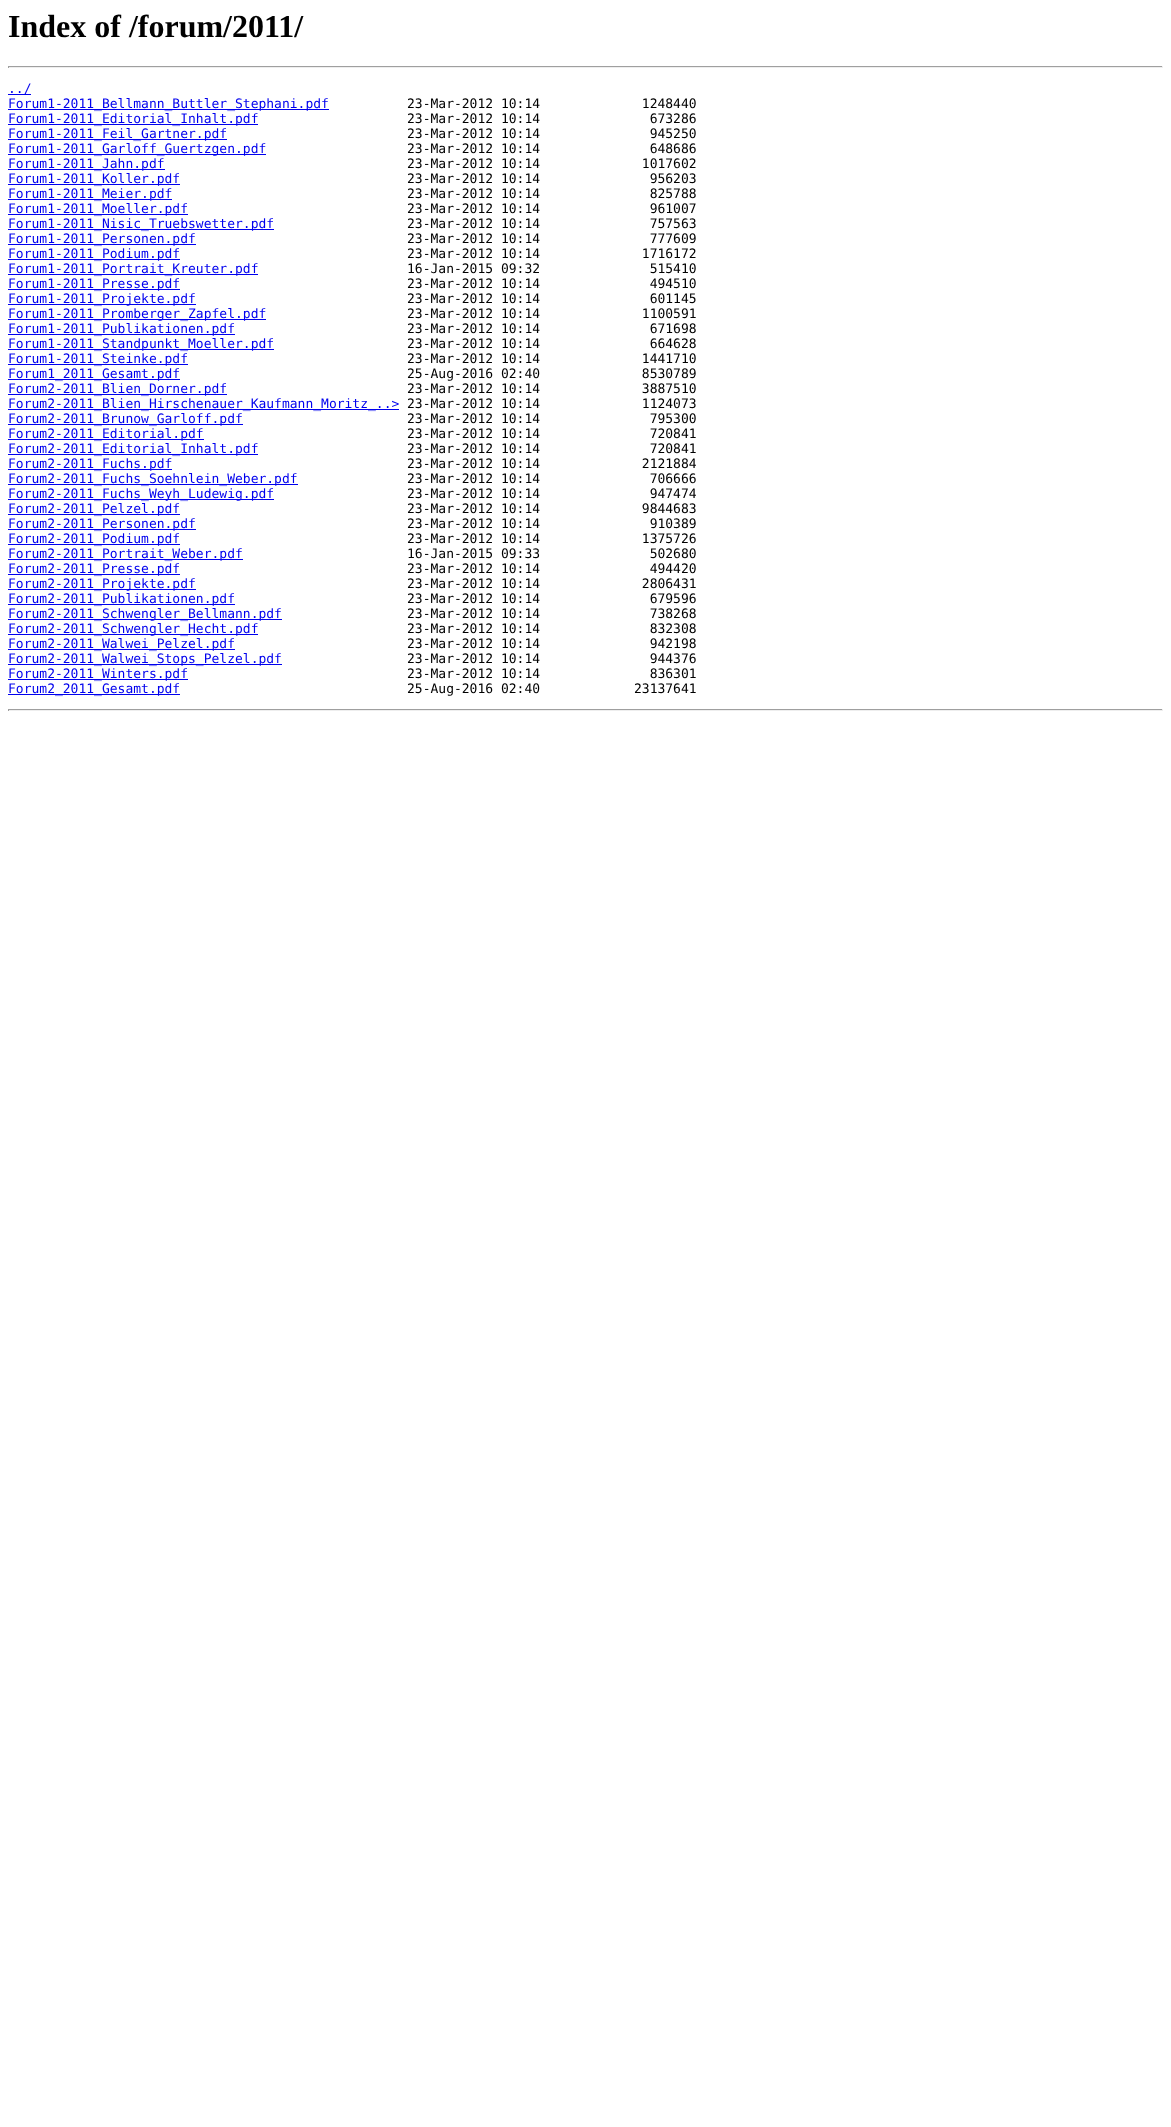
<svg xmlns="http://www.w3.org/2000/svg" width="1171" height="2127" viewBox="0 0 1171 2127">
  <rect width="100%" height="100%" fill="#ffffff"/>
  <text x="8" y="37" font-family="Liberation Serif" font-size="32" font-weight="bold" fill="#000000">Index of /forum/2011/</text>
  <rect x="8" y="66" width="1155" height="1" fill="#9f9f9f"/>
  <rect x="1162" y="66" width="1" height="2" fill="#eeeeee"/>
  <rect x="8" y="67" width="1155" height="1" fill="#eeeeee"/>
  <rect x="8" y="66" width="1" height="2" fill="#9f9f9f"/>
  <rect x="8" y="94" width="23" height="1" fill="#0000ee"/>
  <text x="8" y="93" font-family="DejaVu Sans Mono" font-size="13" fill="#0000ee">../</text>
  <rect x="8" y="109" width="321" height="1" fill="#0000ee"/>
  <text x="8" y="108" font-family="DejaVu Sans Mono" font-size="13" fill="#0000ee">Forum1-2011_Bellmann_Buttler_Stephani.pdf</text>
  <text x="407" y="108" font-family="DejaVu Sans Mono" font-size="13" fill="#000000" xml:space="preserve">23-Mar-2012 10:14             1248440</text>
  <rect x="8" y="124" width="250" height="1" fill="#0000ee"/>
  <text x="8" y="123" font-family="DejaVu Sans Mono" font-size="13" fill="#0000ee">Forum1-2011_Editorial_Inhalt.pdf</text>
  <text x="407" y="123" font-family="DejaVu Sans Mono" font-size="13" fill="#000000" xml:space="preserve">23-Mar-2012 10:14              673286</text>
  <rect x="8" y="139" width="219" height="1" fill="#0000ee"/>
  <text x="8" y="138" font-family="DejaVu Sans Mono" font-size="13" fill="#0000ee">Forum1-2011_Feil_Gartner.pdf</text>
  <text x="407" y="138" font-family="DejaVu Sans Mono" font-size="13" fill="#000000" xml:space="preserve">23-Mar-2012 10:14              945250</text>
  <rect x="8" y="154" width="258" height="1" fill="#0000ee"/>
  <text x="8" y="153" font-family="DejaVu Sans Mono" font-size="13" fill="#0000ee">Forum1-2011_Garloff_Guertzgen.pdf</text>
  <text x="407" y="153" font-family="DejaVu Sans Mono" font-size="13" fill="#000000" xml:space="preserve">23-Mar-2012 10:14              648686</text>
  <rect x="8" y="169" width="157" height="1" fill="#0000ee"/>
  <text x="8" y="168" font-family="DejaVu Sans Mono" font-size="13" fill="#0000ee">Forum1-2011_Jahn.pdf</text>
  <text x="407" y="168" font-family="DejaVu Sans Mono" font-size="13" fill="#000000" xml:space="preserve">23-Mar-2012 10:14             1017602</text>
  <rect x="8" y="184" width="172" height="1" fill="#0000ee"/>
  <text x="8" y="183" font-family="DejaVu Sans Mono" font-size="13" fill="#0000ee">Forum1-2011_Koller.pdf</text>
  <text x="407" y="183" font-family="DejaVu Sans Mono" font-size="13" fill="#000000" xml:space="preserve">23-Mar-2012 10:14              956203</text>
  <rect x="8" y="199" width="164" height="1" fill="#0000ee"/>
  <text x="8" y="198" font-family="DejaVu Sans Mono" font-size="13" fill="#0000ee">Forum1-2011_Meier.pdf</text>
  <text x="407" y="198" font-family="DejaVu Sans Mono" font-size="13" fill="#000000" xml:space="preserve">23-Mar-2012 10:14              825788</text>
  <rect x="8" y="214" width="180" height="1" fill="#0000ee"/>
  <text x="8" y="213" font-family="DejaVu Sans Mono" font-size="13" fill="#0000ee">Forum1-2011_Moeller.pdf</text>
  <text x="407" y="213" font-family="DejaVu Sans Mono" font-size="13" fill="#000000" xml:space="preserve">23-Mar-2012 10:14              961007</text>
  <rect x="8" y="229" width="266" height="1" fill="#0000ee"/>
  <text x="8" y="228" font-family="DejaVu Sans Mono" font-size="13" fill="#0000ee">Forum1-2011_Nisic_Truebswetter.pdf</text>
  <text x="407" y="228" font-family="DejaVu Sans Mono" font-size="13" fill="#000000" xml:space="preserve">23-Mar-2012 10:14              757563</text>
  <rect x="8" y="244" width="188" height="1" fill="#0000ee"/>
  <text x="8" y="243" font-family="DejaVu Sans Mono" font-size="13" fill="#0000ee">Forum1-2011_Personen.pdf</text>
  <text x="407" y="243" font-family="DejaVu Sans Mono" font-size="13" fill="#000000" xml:space="preserve">23-Mar-2012 10:14              777609</text>
  <rect x="8" y="259" width="172" height="1" fill="#0000ee"/>
  <text x="8" y="258" font-family="DejaVu Sans Mono" font-size="13" fill="#0000ee">Forum1-2011_Podium.pdf</text>
  <text x="407" y="258" font-family="DejaVu Sans Mono" font-size="13" fill="#000000" xml:space="preserve">23-Mar-2012 10:14             1716172</text>
  <rect x="8" y="274" width="250" height="1" fill="#0000ee"/>
  <text x="8" y="273" font-family="DejaVu Sans Mono" font-size="13" fill="#0000ee">Forum1-2011_Portrait_Kreuter.pdf</text>
  <text x="407" y="273" font-family="DejaVu Sans Mono" font-size="13" fill="#000000" xml:space="preserve">16-Jan-2015 09:32              515410</text>
  <rect x="8" y="289" width="172" height="1" fill="#0000ee"/>
  <text x="8" y="288" font-family="DejaVu Sans Mono" font-size="13" fill="#0000ee">Forum1-2011_Presse.pdf</text>
  <text x="407" y="288" font-family="DejaVu Sans Mono" font-size="13" fill="#000000" xml:space="preserve">23-Mar-2012 10:14              494510</text>
  <rect x="8" y="304" width="188" height="1" fill="#0000ee"/>
  <text x="8" y="303" font-family="DejaVu Sans Mono" font-size="13" fill="#0000ee">Forum1-2011_Projekte.pdf</text>
  <text x="407" y="303" font-family="DejaVu Sans Mono" font-size="13" fill="#000000" xml:space="preserve">23-Mar-2012 10:14              601145</text>
  <rect x="8" y="319" width="258" height="1" fill="#0000ee"/>
  <text x="8" y="318" font-family="DejaVu Sans Mono" font-size="13" fill="#0000ee">Forum1-2011_Promberger_Zapfel.pdf</text>
  <text x="407" y="318" font-family="DejaVu Sans Mono" font-size="13" fill="#000000" xml:space="preserve">23-Mar-2012 10:14             1100591</text>
  <rect x="8" y="334" width="227" height="1" fill="#0000ee"/>
  <text x="8" y="333" font-family="DejaVu Sans Mono" font-size="13" fill="#0000ee">Forum1-2011_Publikationen.pdf</text>
  <text x="407" y="333" font-family="DejaVu Sans Mono" font-size="13" fill="#000000" xml:space="preserve">23-Mar-2012 10:14              671698</text>
  <rect x="8" y="349" width="266" height="1" fill="#0000ee"/>
  <text x="8" y="348" font-family="DejaVu Sans Mono" font-size="13" fill="#0000ee">Forum1-2011_Standpunkt_Moeller.pdf</text>
  <text x="407" y="348" font-family="DejaVu Sans Mono" font-size="13" fill="#000000" xml:space="preserve">23-Mar-2012 10:14              664628</text>
  <rect x="8" y="364" width="180" height="1" fill="#0000ee"/>
  <text x="8" y="363" font-family="DejaVu Sans Mono" font-size="13" fill="#0000ee">Forum1-2011_Steinke.pdf</text>
  <text x="407" y="363" font-family="DejaVu Sans Mono" font-size="13" fill="#000000" xml:space="preserve">23-Mar-2012 10:14             1441710</text>
  <rect x="8" y="379" width="172" height="1" fill="#0000ee"/>
  <text x="8" y="378" font-family="DejaVu Sans Mono" font-size="13" fill="#0000ee">Forum1_2011_Gesamt.pdf</text>
  <text x="407" y="378" font-family="DejaVu Sans Mono" font-size="13" fill="#000000" xml:space="preserve">25-Aug-2016 02:40             8530789</text>
  <rect x="8" y="394" width="219" height="1" fill="#0000ee"/>
  <text x="8" y="393" font-family="DejaVu Sans Mono" font-size="13" fill="#0000ee">Forum2-2011_Blien_Dorner.pdf</text>
  <text x="407" y="393" font-family="DejaVu Sans Mono" font-size="13" fill="#000000" xml:space="preserve">23-Mar-2012 10:14             3887510</text>
  <rect x="8" y="409" width="391" height="1" fill="#0000ee"/>
  <text x="8" y="408" font-family="DejaVu Sans Mono" font-size="13" fill="#0000ee">Forum2-2011_Blien_Hirschenauer_Kaufmann_Moritz_..&gt;</text>
  <text x="407" y="408" font-family="DejaVu Sans Mono" font-size="13" fill="#000000" xml:space="preserve">23-Mar-2012 10:14             1124073</text>
  <rect x="8" y="424" width="235" height="1" fill="#0000ee"/>
  <text x="8" y="423" font-family="DejaVu Sans Mono" font-size="13" fill="#0000ee">Forum2-2011_Brunow_Garloff.pdf</text>
  <text x="407" y="423" font-family="DejaVu Sans Mono" font-size="13" fill="#000000" xml:space="preserve">23-Mar-2012 10:14              795300</text>
  <rect x="8" y="439" width="196" height="1" fill="#0000ee"/>
  <text x="8" y="438" font-family="DejaVu Sans Mono" font-size="13" fill="#0000ee">Forum2-2011_Editorial.pdf</text>
  <text x="407" y="438" font-family="DejaVu Sans Mono" font-size="13" fill="#000000" xml:space="preserve">23-Mar-2012 10:14              720841</text>
  <rect x="8" y="454" width="250" height="1" fill="#0000ee"/>
  <text x="8" y="453" font-family="DejaVu Sans Mono" font-size="13" fill="#0000ee">Forum2-2011_Editorial_Inhalt.pdf</text>
  <text x="407" y="453" font-family="DejaVu Sans Mono" font-size="13" fill="#000000" xml:space="preserve">23-Mar-2012 10:14              720841</text>
  <rect x="8" y="469" width="164" height="1" fill="#0000ee"/>
  <text x="8" y="468" font-family="DejaVu Sans Mono" font-size="13" fill="#0000ee">Forum2-2011_Fuchs.pdf</text>
  <text x="407" y="468" font-family="DejaVu Sans Mono" font-size="13" fill="#000000" xml:space="preserve">23-Mar-2012 10:14             2121884</text>
  <rect x="8" y="484" width="290" height="1" fill="#0000ee"/>
  <text x="8" y="483" font-family="DejaVu Sans Mono" font-size="13" fill="#0000ee">Forum2-2011_Fuchs_Soehnlein_Weber.pdf</text>
  <text x="407" y="483" font-family="DejaVu Sans Mono" font-size="13" fill="#000000" xml:space="preserve">23-Mar-2012 10:14              706666</text>
  <rect x="8" y="499" width="266" height="1" fill="#0000ee"/>
  <text x="8" y="498" font-family="DejaVu Sans Mono" font-size="13" fill="#0000ee">Forum2-2011_Fuchs_Weyh_Ludewig.pdf</text>
  <text x="407" y="498" font-family="DejaVu Sans Mono" font-size="13" fill="#000000" xml:space="preserve">23-Mar-2012 10:14              947474</text>
  <rect x="8" y="514" width="172" height="1" fill="#0000ee"/>
  <text x="8" y="513" font-family="DejaVu Sans Mono" font-size="13" fill="#0000ee">Forum2-2011_Pelzel.pdf</text>
  <text x="407" y="513" font-family="DejaVu Sans Mono" font-size="13" fill="#000000" xml:space="preserve">23-Mar-2012 10:14             9844683</text>
  <rect x="8" y="529" width="188" height="1" fill="#0000ee"/>
  <text x="8" y="528" font-family="DejaVu Sans Mono" font-size="13" fill="#0000ee">Forum2-2011_Personen.pdf</text>
  <text x="407" y="528" font-family="DejaVu Sans Mono" font-size="13" fill="#000000" xml:space="preserve">23-Mar-2012 10:14              910389</text>
  <rect x="8" y="544" width="172" height="1" fill="#0000ee"/>
  <text x="8" y="543" font-family="DejaVu Sans Mono" font-size="13" fill="#0000ee">Forum2-2011_Podium.pdf</text>
  <text x="407" y="543" font-family="DejaVu Sans Mono" font-size="13" fill="#000000" xml:space="preserve">23-Mar-2012 10:14             1375726</text>
  <rect x="8" y="559" width="235" height="1" fill="#0000ee"/>
  <text x="8" y="558" font-family="DejaVu Sans Mono" font-size="13" fill="#0000ee">Forum2-2011_Portrait_Weber.pdf</text>
  <text x="407" y="558" font-family="DejaVu Sans Mono" font-size="13" fill="#000000" xml:space="preserve">16-Jan-2015 09:33              502680</text>
  <rect x="8" y="574" width="172" height="1" fill="#0000ee"/>
  <text x="8" y="573" font-family="DejaVu Sans Mono" font-size="13" fill="#0000ee">Forum2-2011_Presse.pdf</text>
  <text x="407" y="573" font-family="DejaVu Sans Mono" font-size="13" fill="#000000" xml:space="preserve">23-Mar-2012 10:14              494420</text>
  <rect x="8" y="589" width="188" height="1" fill="#0000ee"/>
  <text x="8" y="588" font-family="DejaVu Sans Mono" font-size="13" fill="#0000ee">Forum2-2011_Projekte.pdf</text>
  <text x="407" y="588" font-family="DejaVu Sans Mono" font-size="13" fill="#000000" xml:space="preserve">23-Mar-2012 10:14             2806431</text>
  <rect x="8" y="604" width="227" height="1" fill="#0000ee"/>
  <text x="8" y="603" font-family="DejaVu Sans Mono" font-size="13" fill="#0000ee">Forum2-2011_Publikationen.pdf</text>
  <text x="407" y="603" font-family="DejaVu Sans Mono" font-size="13" fill="#000000" xml:space="preserve">23-Mar-2012 10:14              679596</text>
  <rect x="8" y="619" width="274" height="1" fill="#0000ee"/>
  <text x="8" y="618" font-family="DejaVu Sans Mono" font-size="13" fill="#0000ee">Forum2-2011_Schwengler_Bellmann.pdf</text>
  <text x="407" y="618" font-family="DejaVu Sans Mono" font-size="13" fill="#000000" xml:space="preserve">23-Mar-2012 10:14              738268</text>
  <rect x="8" y="634" width="250" height="1" fill="#0000ee"/>
  <text x="8" y="633" font-family="DejaVu Sans Mono" font-size="13" fill="#0000ee">Forum2-2011_Schwengler_Hecht.pdf</text>
  <text x="407" y="633" font-family="DejaVu Sans Mono" font-size="13" fill="#000000" xml:space="preserve">23-Mar-2012 10:14              832308</text>
  <rect x="8" y="649" width="227" height="1" fill="#0000ee"/>
  <text x="8" y="648" font-family="DejaVu Sans Mono" font-size="13" fill="#0000ee">Forum2-2011_Walwei_Pelzel.pdf</text>
  <text x="407" y="648" font-family="DejaVu Sans Mono" font-size="13" fill="#000000" xml:space="preserve">23-Mar-2012 10:14              942198</text>
  <rect x="8" y="664" width="274" height="1" fill="#0000ee"/>
  <text x="8" y="663" font-family="DejaVu Sans Mono" font-size="13" fill="#0000ee">Forum2-2011_Walwei_Stops_Pelzel.pdf</text>
  <text x="407" y="663" font-family="DejaVu Sans Mono" font-size="13" fill="#000000" xml:space="preserve">23-Mar-2012 10:14              944376</text>
  <rect x="8" y="679" width="180" height="1" fill="#0000ee"/>
  <text x="8" y="678" font-family="DejaVu Sans Mono" font-size="13" fill="#0000ee">Forum2-2011_Winters.pdf</text>
  <text x="407" y="678" font-family="DejaVu Sans Mono" font-size="13" fill="#000000" xml:space="preserve">23-Mar-2012 10:14              836301</text>
  <rect x="8" y="694" width="172" height="1" fill="#0000ee"/>
  <text x="8" y="693" font-family="DejaVu Sans Mono" font-size="13" fill="#0000ee">Forum2_2011_Gesamt.pdf</text>
  <text x="407" y="693" font-family="DejaVu Sans Mono" font-size="13" fill="#000000" xml:space="preserve">25-Aug-2016 02:40            23137641</text>
  <rect x="8" y="709" width="1155" height="1" fill="#9f9f9f"/>
  <rect x="1162" y="709" width="1" height="2" fill="#eeeeee"/>
  <rect x="8" y="710" width="1155" height="1" fill="#eeeeee"/>
  <rect x="8" y="709" width="1" height="2" fill="#9f9f9f"/>
</svg>
